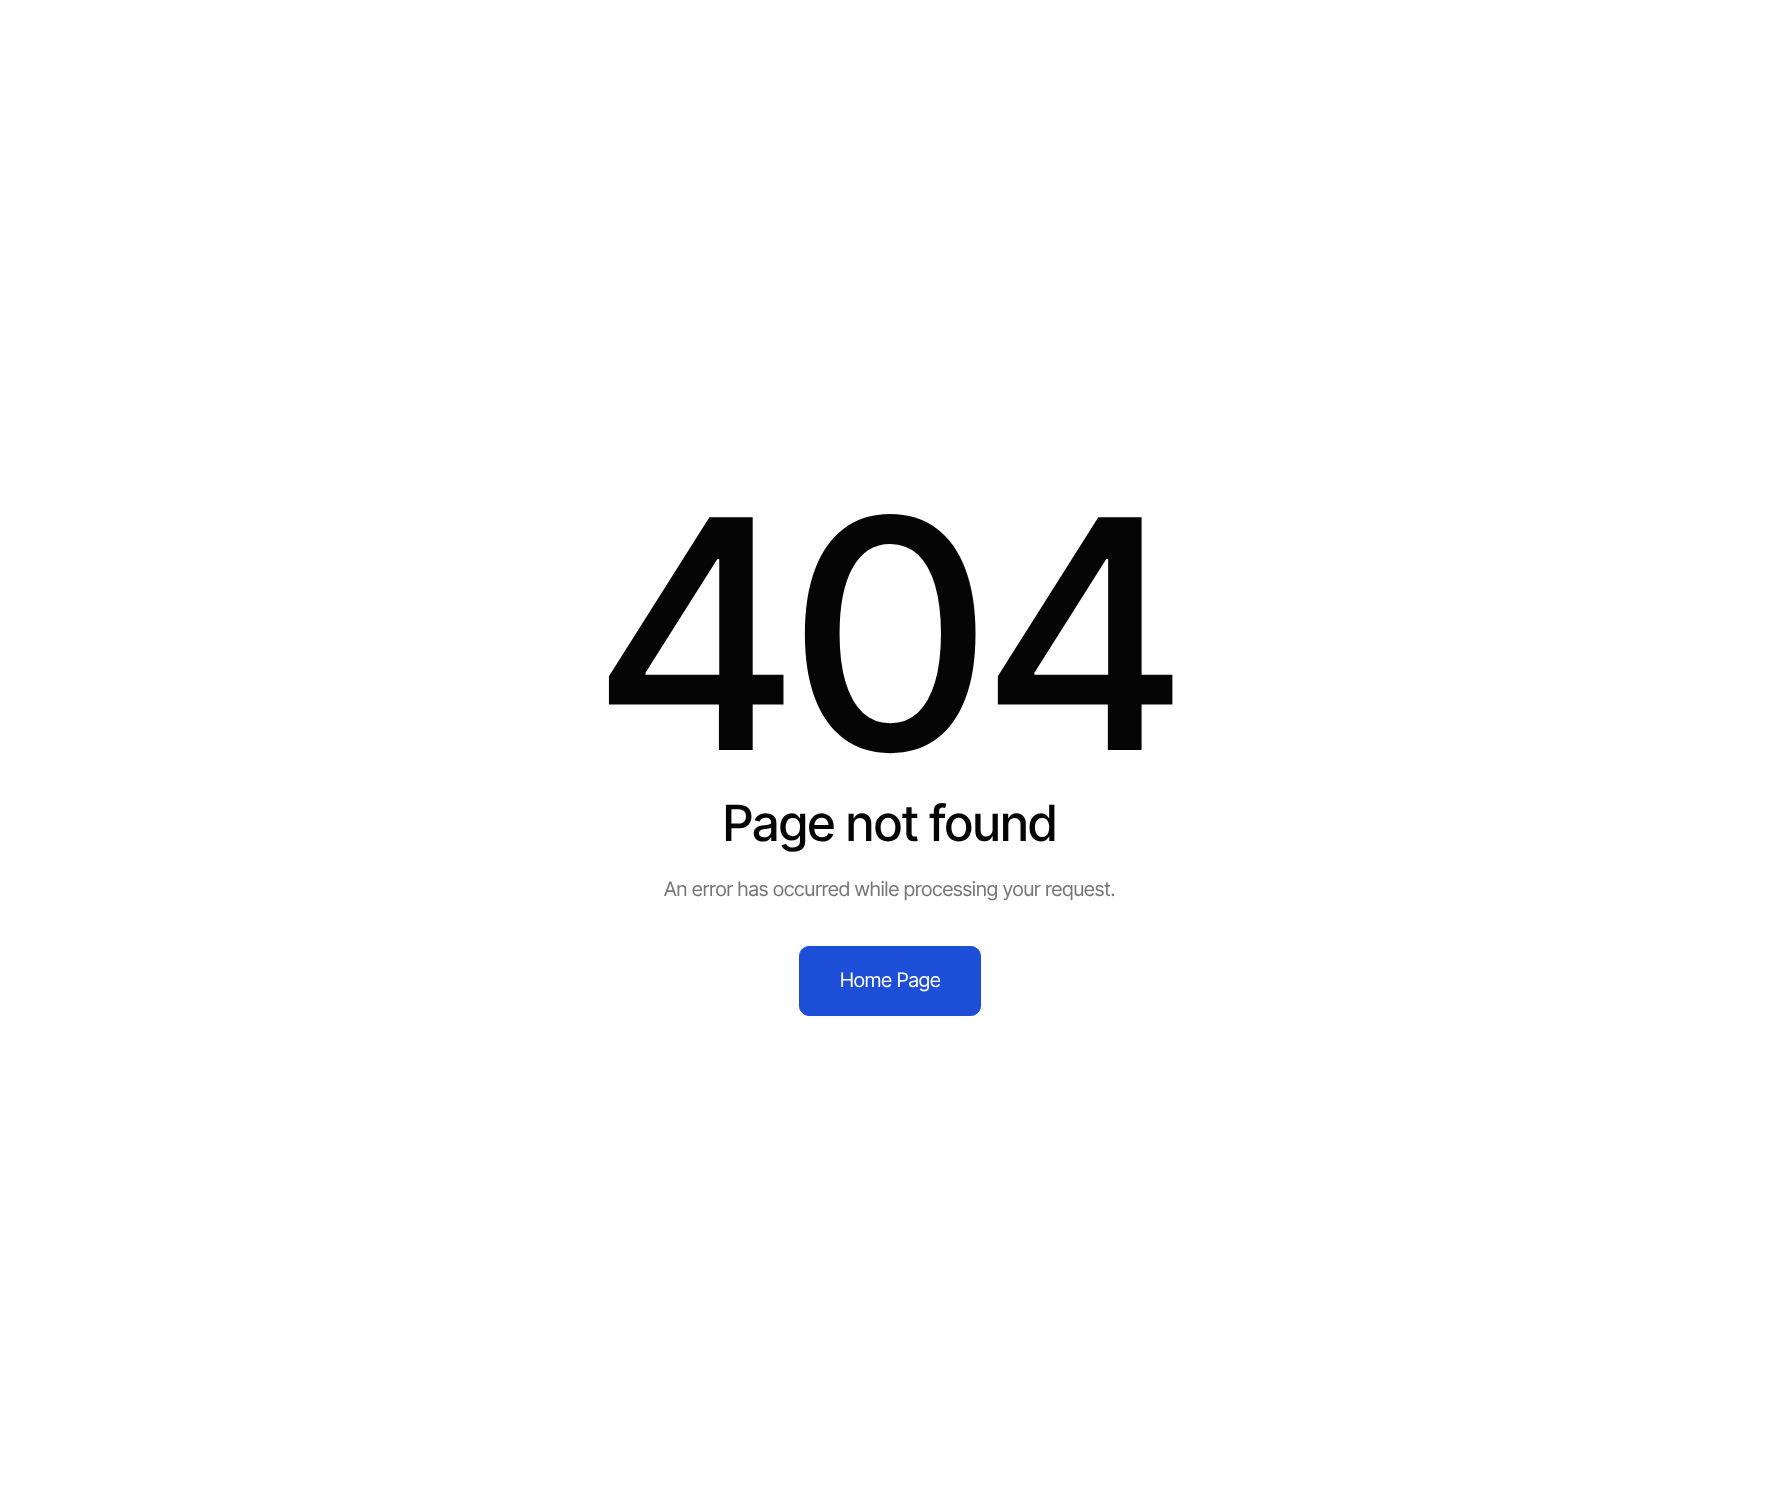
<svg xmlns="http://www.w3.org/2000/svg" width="1779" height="1489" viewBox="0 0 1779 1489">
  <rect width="100%" height="100%" fill="#ffffff"/>
  <text x="598" y="750" font-family="Inter Tight" font-size="320" font-weight="500" fill="#050505">404</text>
  <text x="723" y="841" font-family="Inter Tight" font-size="50" font-weight="500" fill="#050505">Page not found</text>
  <text x="664" y="896" font-family="Inter Tight" font-size="20" fill="#757575">An error has occurred while processing your request.</text>
  <rect x="799.5" y="946.5" width="181" height="69" rx="9.5" fill="#1d4ed8" stroke="#1d4ed8"/>
  <text x="840" y="987" font-family="Inter Tight" font-size="20" fill="#ffffff">Home Page</text>
</svg>
